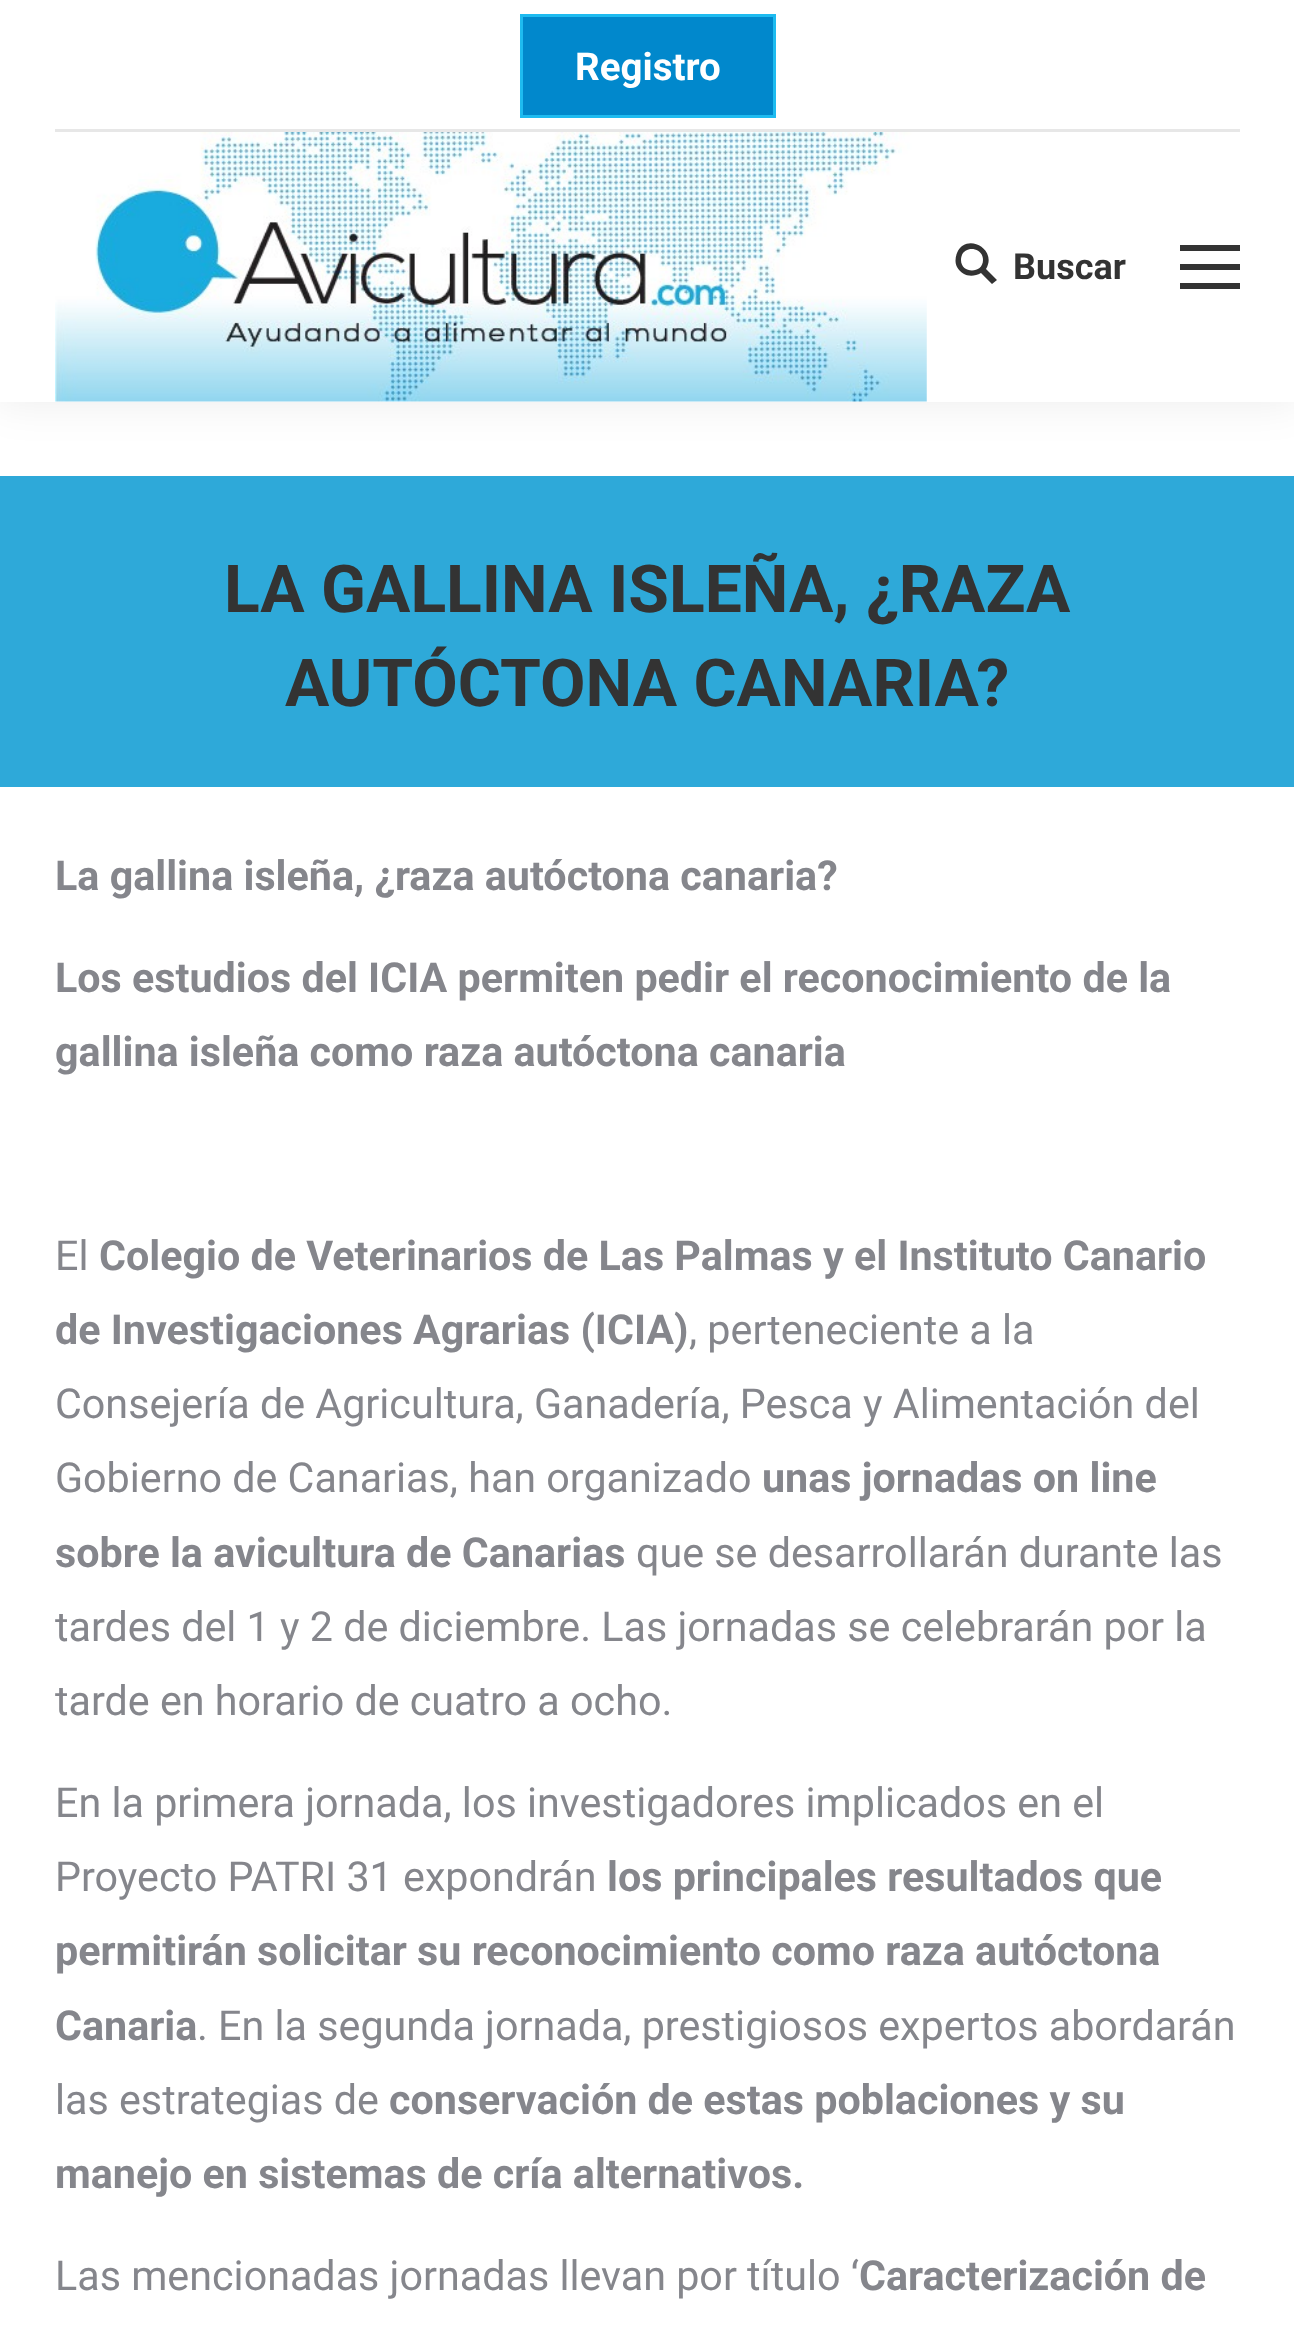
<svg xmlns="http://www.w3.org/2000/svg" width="1294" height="2340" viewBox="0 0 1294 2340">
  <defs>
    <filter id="blur1" x="-50%" y="-200%" width="200%" height="500%"><feGaussianBlur stdDeviation="20.5"/></filter>
  </defs>
  <rect width="100%" height="100%" fill="#ffffff"/>
  <rect x="-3" y="-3" width="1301" height="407" fill="#000000" fill-opacity="0.07" filter="url(#blur1)"/>
  <rect x="0" y="0" width="1294" height="402" fill="#ffffff"/>
  <rect x="521.5" y="15.5" width="253" height="101" fill="#0188cc" stroke="#1ebbf0" stroke-width="3"/>
  <text x="575" y="80" font-family="Roboto" font-size="38.5" font-weight="bold" fill="#ffffff">Registro</text>
  <rect x="55" y="129" width="1185" height="3" fill="#e7e7e7"/>
  <image x="55" y="132" width="872" height="270" href="img1.png"/>
  <path d="M997 280L986 269C998 249 966 232 957 253C955 258 955 263 957 267C962 276 972 278 981 273L992 284ZM961 260C961 245 983 246 983 260C983 274 961 274 961 260Z" fill="#333333"/>
  <text x="1013" y="279" font-family="Roboto" font-size="36" font-weight="bold" fill="#333333">Buscar</text>
  <rect x="1180" y="264" width="60" height="6" fill="#333333"/>
  <rect x="1180" y="245" width="60" height="6" fill="#333333"/>
  <rect x="1180" y="283" width="60" height="6" fill="#333333"/>
  <rect x="0" y="476" width="1294" height="311" fill="#2ea9d9"/>
  <text x="224" y="612" font-family="Roboto" font-size="66" font-weight="bold" fill="#333333">LA GALLINA ISLEÑA, ¿RAZA</text>
  <text x="285" y="706" font-family="Roboto" font-size="66" font-weight="bold" fill="#333333">AUTÓCTONA CANARIA?</text>
  <text x="55" y="890" font-family="Roboto" font-size="41.25" font-weight="bold" fill="#85868c">La gallina isleña, ¿raza autóctona canaria?</text>
  <text x="55" y="992" font-family="Roboto" font-size="41.25" font-weight="bold" fill="#85868c">Los estudios del ICIA permiten pedir el reconocimiento de la</text>
  <text x="55" y="1066" font-family="Roboto" font-size="41.25" font-weight="bold" fill="#85868c">gallina isleña como raza autóctona canaria</text>
  <text x="55" y="1270" font-family="Roboto" font-size="41.25" fill="#85868c">El</text>
  <text x="99" y="1270" font-family="Roboto" font-size="41.25" font-weight="bold" fill="#85868c">Colegio de Veterinarios de Las Palmas y el Instituto Canario</text>
  <text x="55" y="1344" font-family="Roboto" font-size="41.25" font-weight="bold" fill="#85868c">de Investigaciones Agrarias (ICIA)</text>
  <text x="689" y="1344" font-family="Roboto" font-size="41.25" fill="#85868c">, perteneciente a la</text>
  <text x="55" y="1418" font-family="Roboto" font-size="41.25" fill="#85868c">Consejería de Agricultura, Ganadería, Pesca y Alimentación del</text>
  <text x="55" y="1492" font-family="Roboto" font-size="41.25" fill="#85868c">Gobierno de Canarias, han organizado</text>
  <text x="762" y="1492" font-family="Roboto" font-size="41.25" font-weight="bold" fill="#85868c">unas jornadas on line</text>
  <text x="55" y="1567" font-family="Roboto" font-size="41.25" font-weight="bold" fill="#85868c">sobre la avicultura de Canarias</text>
  <text x="636" y="1567" font-family="Roboto" font-size="41.25" fill="#85868c">que se desarrollarán durante las</text>
  <text x="55" y="1641" font-family="Roboto" font-size="41.25" fill="#85868c">tardes del 1 y 2 de diciembre. Las jornadas se celebrarán por la</text>
  <text x="55" y="1715" font-family="Roboto" font-size="41.25" fill="#85868c">tarde en horario de cuatro a ocho.</text>
  <text x="55" y="1817" font-family="Roboto" font-size="41.25" fill="#85868c">En la primera jornada, los investigadores implicados en el</text>
  <text x="55" y="1891" font-family="Roboto" font-size="41.25" fill="#85868c">Proyecto PATRI 31 expondrán</text>
  <text x="607" y="1891" font-family="Roboto" font-size="41.25" font-weight="bold" fill="#85868c">los principales resultados que</text>
  <text x="55" y="1965" font-family="Roboto" font-size="41.25" font-weight="bold" fill="#85868c">permitirán solicitar su reconocimiento como raza autóctona</text>
  <text x="55" y="2040" font-family="Roboto" font-size="41.25" font-weight="bold" fill="#85868c">Canaria</text>
  <text x="197" y="2040" font-family="Roboto" font-size="41.25" fill="#85868c">. En la segunda jornada, prestigiosos expertos abordarán</text>
  <text x="55" y="2114" font-family="Roboto" font-size="41.25" fill="#85868c">las estrategias de</text>
  <text x="389" y="2114" font-family="Roboto" font-size="41.25" font-weight="bold" fill="#85868c">conservación de estas poblaciones y su</text>
  <text x="55" y="2188" font-family="Roboto" font-size="41.25" font-weight="bold" fill="#85868c">manejo en sistemas de cría alternativos.</text>
  <text x="55" y="2290" font-family="Roboto" font-size="41.25" fill="#85868c">Las mencionadas jornadas llevan por título ‘</text>
  <text x="859" y="2290" font-family="Roboto" font-size="41.25" font-weight="bold" fill="#85868c">Caracterización de</text>
</svg>
